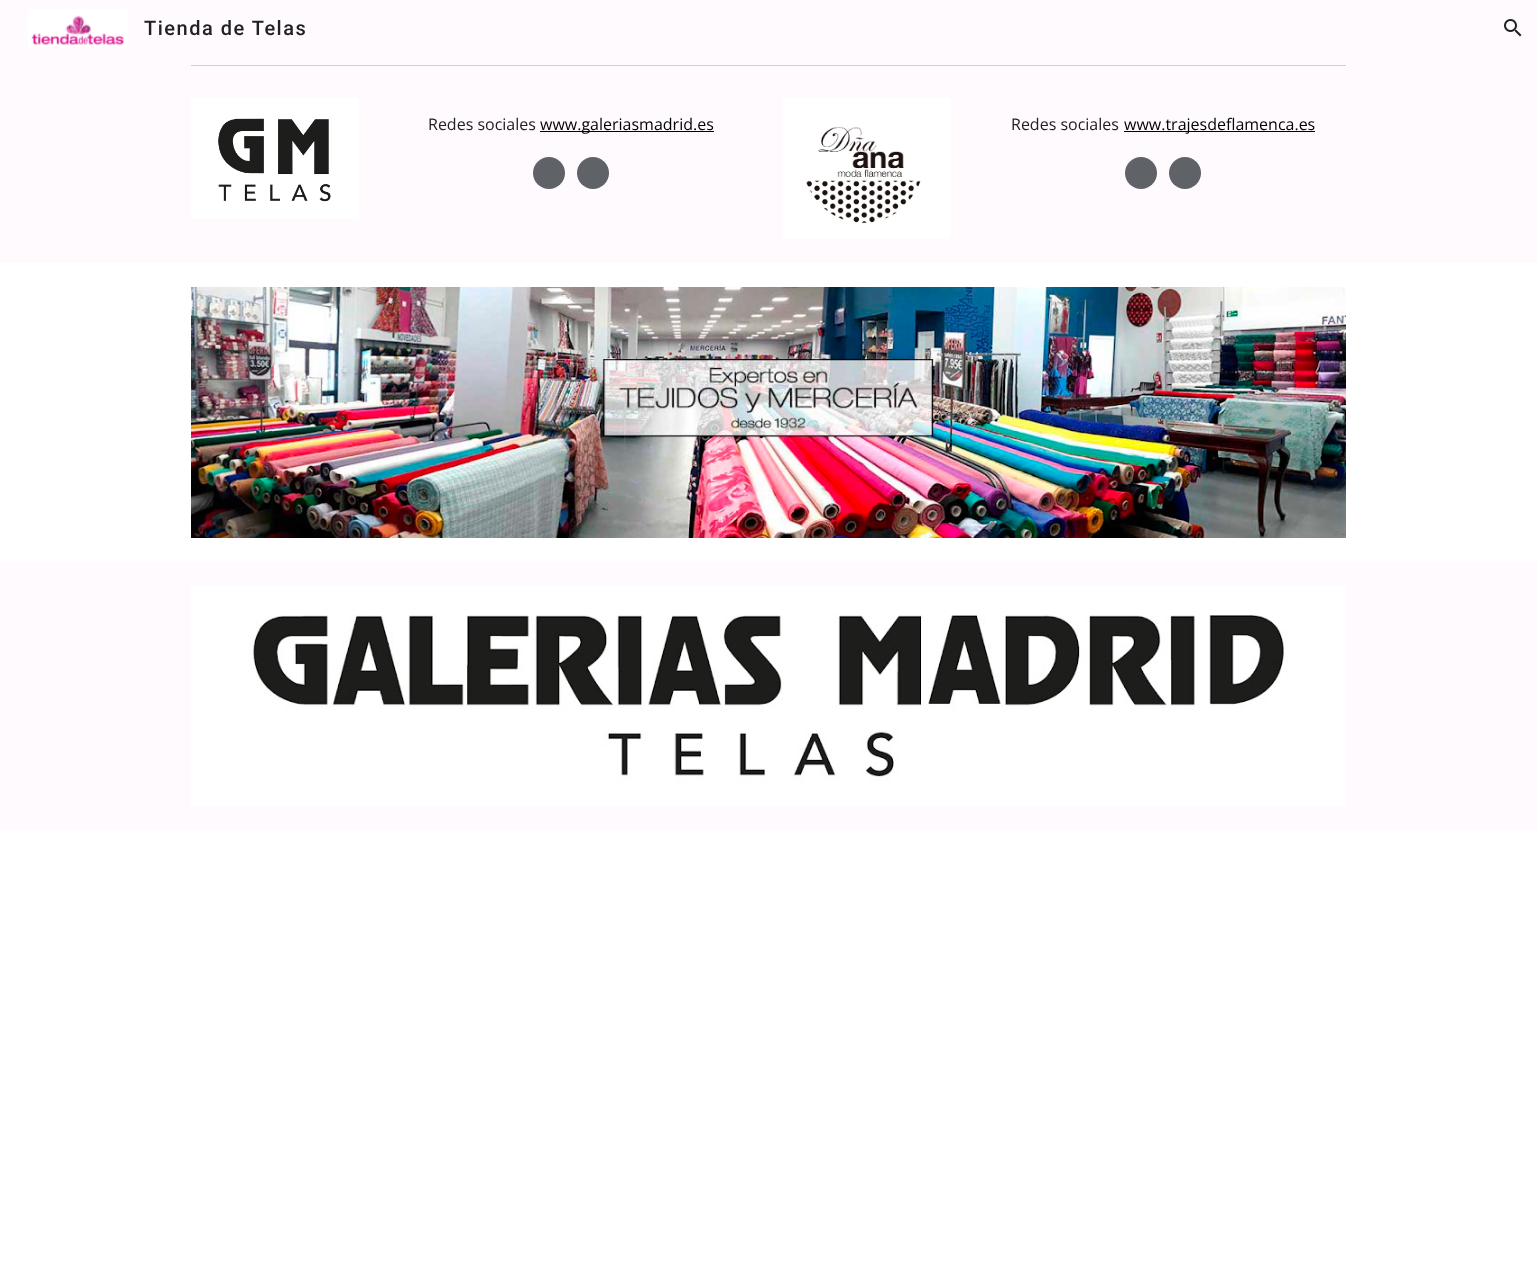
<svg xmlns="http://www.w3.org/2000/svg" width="1537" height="1263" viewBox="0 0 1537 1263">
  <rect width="100%" height="100%" fill="#ffffff"/>
  <rect x="0" y="0" width="1537" height="263" fill="#fffafe"/>
  <image x="28" y="9" width="100" height="38" href="img1.png"/>
  <text x="144" y="35" font-family="Roboto" font-size="20" font-weight="500" letter-spacing="1.5" fill="#212121">Tienda de Telas</text>
  <image x="1504" y="19" width="18" height="18" href="img2.png"/>
  <rect x="191" y="65" width="1155" height="1" fill="#d3ced2"/>
  <image x="191" y="98" width="168" height="121" href="img3.png"/>
  <text x="428" y="130" font-family="Open Sans" font-size="16" fill="#212121">Redes sociales</text>
  <rect x="540" y="131" width="174" height="1" fill="#000000"/>
  <text x="540" y="130" font-family="Open Sans" font-size="16" fill="#000000">www.galeriasmadrid.es</text>
  <circle cx="549" cy="173" r="16" fill="#5f6368"/>
  <circle cx="593" cy="173" r="16" fill="#5f6368"/>
  <image x="783" y="98" width="168" height="141" href="img4.png"/>
  <text x="1011" y="130" font-family="Open Sans" font-size="16" fill="#212121">Redes sociales</text>
  <rect x="1124" y="131" width="191" height="1" fill="#000000"/>
  <text x="1124" y="130" font-family="Open Sans" font-size="16" fill="#000000">www.trajesdeflamenca.es</text>
  <circle cx="1141" cy="173" r="16" fill="#5f6368"/>
  <circle cx="1185" cy="173" r="16" fill="#5f6368"/>
  <image x="191" y="287" width="1155" height="251" href="img5.png"/>
  <rect x="0" y="562" width="1537" height="268" fill="#fffafe"/>
  <image x="191" y="586" width="1155" height="220" href="img6.png"/>
</svg>
